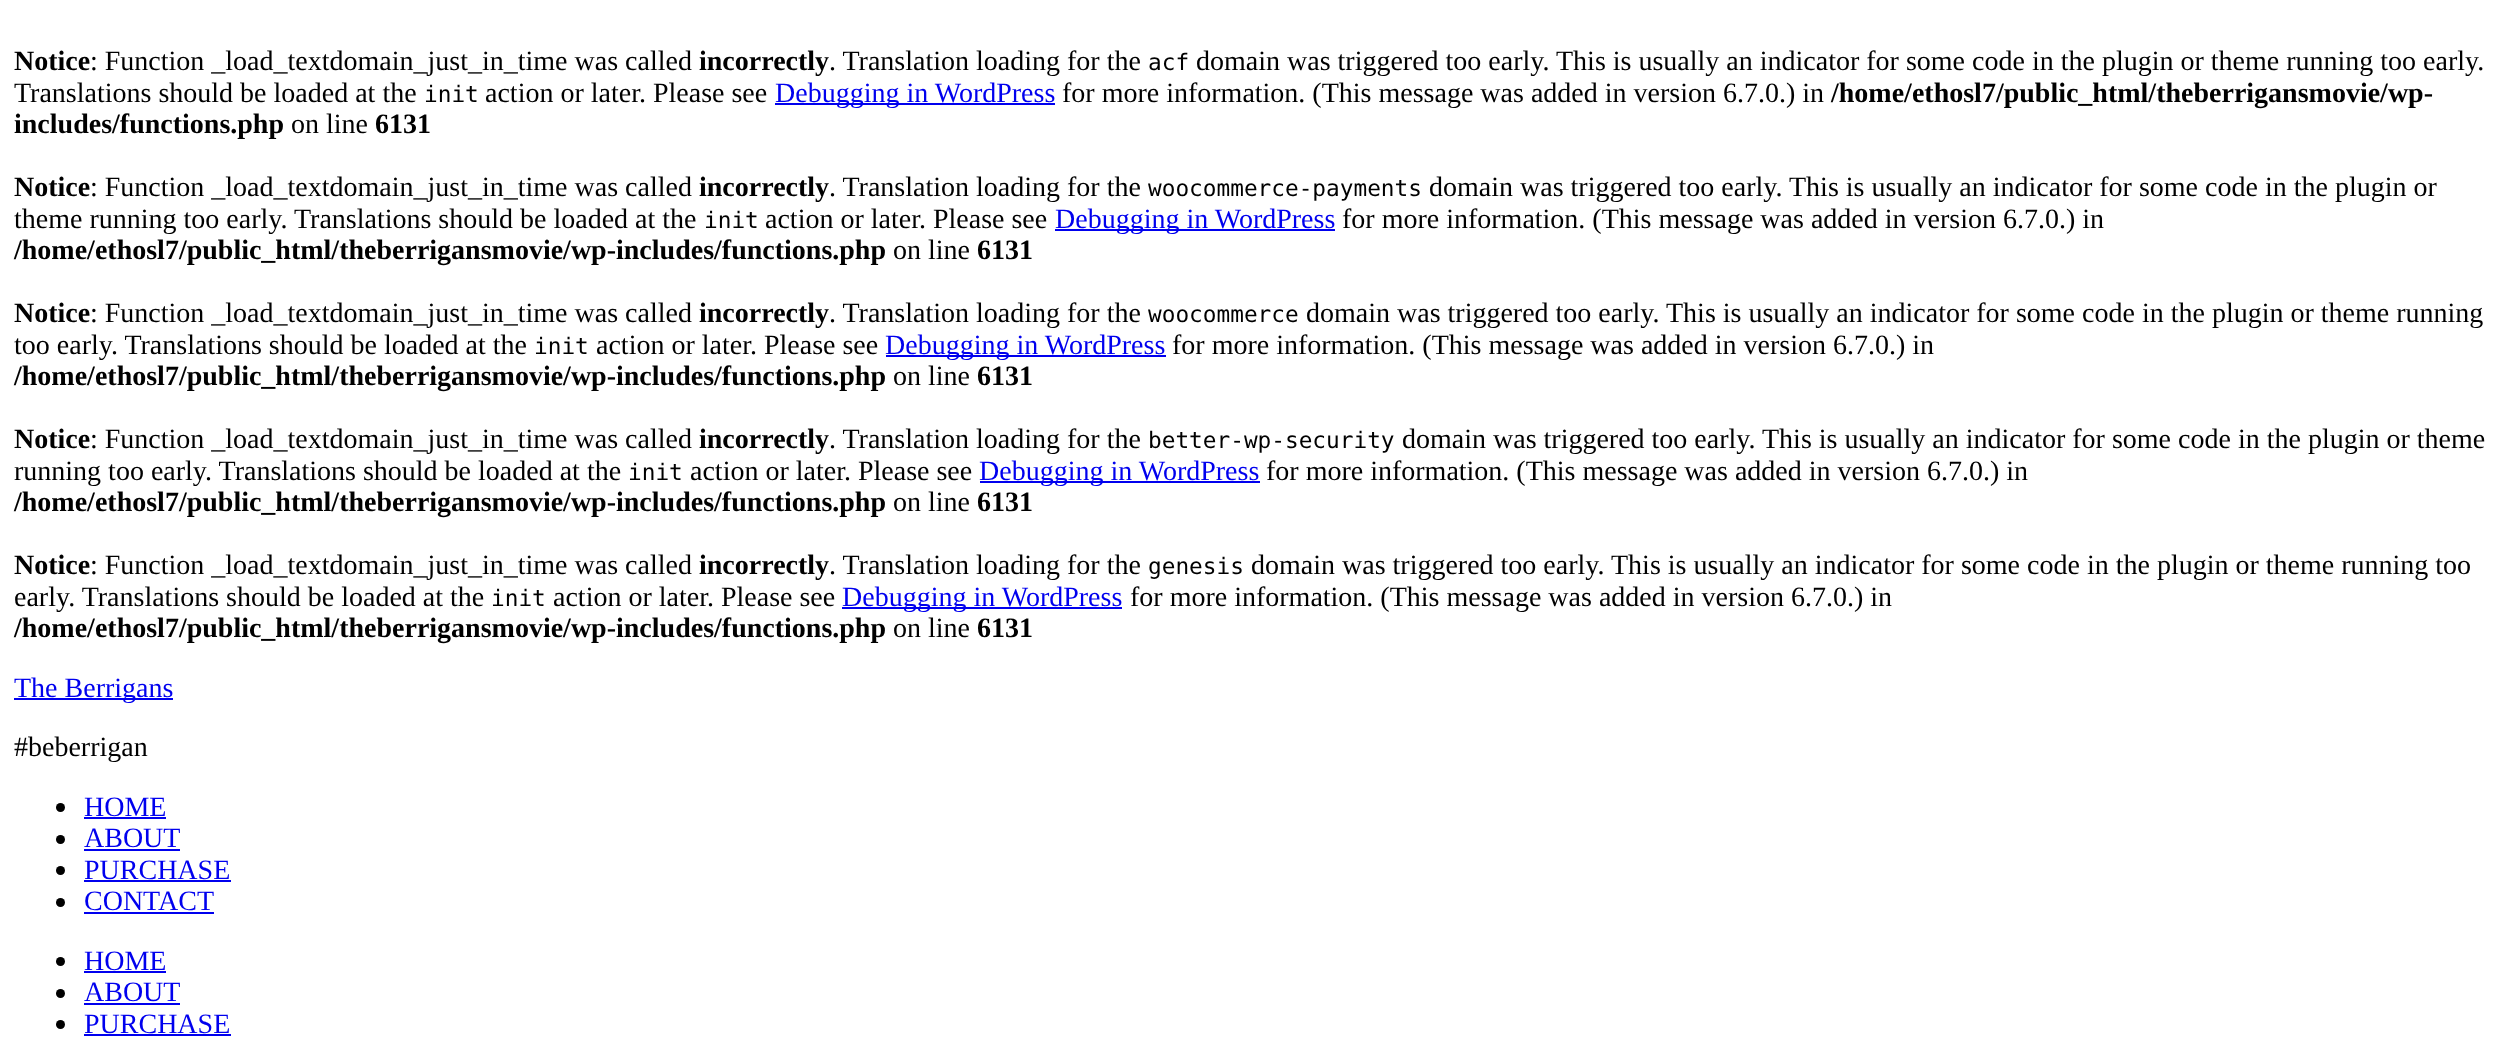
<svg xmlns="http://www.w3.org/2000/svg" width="2512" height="1044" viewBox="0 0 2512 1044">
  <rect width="100%" height="100%" fill="#ffffff"/>
  <text x="14" y="70" font-family="Liberation Serif" font-size="28" font-weight="bold" fill="#000000">Notice</text>
  <text x="90" y="70" font-family="Liberation Serif" font-size="28" fill="#000000">: Function _load_textdomain_just_in_time was called</text>
  <text x="699" y="70" font-family="Liberation Serif" font-size="28" font-weight="bold" fill="#000000">incorrectly</text>
  <text x="829" y="70" font-family="Liberation Serif" font-size="28" fill="#000000">. Translation loading for the</text>
  <text x="1148" y="70" font-family="DejaVu Sans Mono" font-size="22.75" fill="#000000">acf</text>
  <text x="1196" y="70" font-family="Liberation Serif" font-size="28" fill="#000000">domain was triggered too early. This is usually an indicator for some code in the plugin or theme running too early.</text>
  <text x="14" y="102" font-family="Liberation Serif" font-size="28" fill="#000000">Translations should be loaded at the</text>
  <text x="424" y="102" font-family="DejaVu Sans Mono" font-size="22.75" fill="#000000">init</text>
  <text x="485" y="102" font-family="Liberation Serif" font-size="28" fill="#000000">action or later. Please see</text>
  <rect x="775" y="103" width="280" height="2" fill="#0000ee"/>
  <text x="775" y="102" font-family="Liberation Serif" font-size="28" fill="#0000ee">Debugging in WordPress</text>
  <text x="1062" y="102" font-family="Liberation Serif" font-size="28" fill="#000000">for more information. (This message was added in version 6.7.0.) in</text>
  <text x="1831" y="102" font-family="Liberation Serif" font-size="28" font-weight="bold" fill="#000000">/home/ethosl7/public_html/theberrigansmovie/wp-</text>
  <text x="14" y="133" font-family="Liberation Serif" font-size="28" font-weight="bold" fill="#000000">includes/functions.php</text>
  <text x="291" y="133" font-family="Liberation Serif" font-size="28" fill="#000000">on line</text>
  <text x="375" y="133" font-family="Liberation Serif" font-size="28" font-weight="bold" fill="#000000">6131</text>
  <text x="14" y="196" font-family="Liberation Serif" font-size="28" font-weight="bold" fill="#000000">Notice</text>
  <text x="90" y="196" font-family="Liberation Serif" font-size="28" fill="#000000">: Function _load_textdomain_just_in_time was called</text>
  <text x="699" y="196" font-family="Liberation Serif" font-size="28" font-weight="bold" fill="#000000">incorrectly</text>
  <text x="829" y="196" font-family="Liberation Serif" font-size="28" fill="#000000">. Translation loading for the</text>
  <text x="1148" y="196" font-family="DejaVu Sans Mono" font-size="22.75" fill="#000000">woocommerce-payments</text>
  <text x="1429" y="196" font-family="Liberation Serif" font-size="28" fill="#000000">domain was triggered too early. This is usually an indicator for some code in the plugin or</text>
  <text x="14" y="228" font-family="Liberation Serif" font-size="28" fill="#000000">theme running too early. Translations should be loaded at the</text>
  <text x="704" y="228" font-family="DejaVu Sans Mono" font-size="22.75" fill="#000000">init</text>
  <text x="765" y="228" font-family="Liberation Serif" font-size="28" fill="#000000">action or later. Please see</text>
  <rect x="1055" y="229" width="280" height="2" fill="#0000ee"/>
  <text x="1055" y="228" font-family="Liberation Serif" font-size="28" fill="#0000ee">Debugging in WordPress</text>
  <text x="1342" y="228" font-family="Liberation Serif" font-size="28" fill="#000000">for more information. (This message was added in version 6.7.0.) in</text>
  <text x="14" y="259" font-family="Liberation Serif" font-size="28" font-weight="bold" fill="#000000">/home/ethosl7/public_html/theberrigansmovie/wp-includes/functions.php</text>
  <text x="893" y="259" font-family="Liberation Serif" font-size="28" fill="#000000">on line</text>
  <text x="977" y="259" font-family="Liberation Serif" font-size="28" font-weight="bold" fill="#000000">6131</text>
  <text x="14" y="322" font-family="Liberation Serif" font-size="28" font-weight="bold" fill="#000000">Notice</text>
  <text x="90" y="322" font-family="Liberation Serif" font-size="28" fill="#000000">: Function _load_textdomain_just_in_time was called</text>
  <text x="699" y="322" font-family="Liberation Serif" font-size="28" font-weight="bold" fill="#000000">incorrectly</text>
  <text x="829" y="322" font-family="Liberation Serif" font-size="28" fill="#000000">. Translation loading for the</text>
  <text x="1148" y="322" font-family="DejaVu Sans Mono" font-size="22.75" fill="#000000">woocommerce</text>
  <text x="1306" y="322" font-family="Liberation Serif" font-size="28" fill="#000000">domain was triggered too early. This is usually an indicator for some code in the plugin or theme running</text>
  <text x="14" y="354" font-family="Liberation Serif" font-size="28" fill="#000000">too early. Translations should be loaded at the</text>
  <text x="534" y="354" font-family="DejaVu Sans Mono" font-size="22.75" fill="#000000">init</text>
  <text x="596" y="354" font-family="Liberation Serif" font-size="28" fill="#000000">action or later. Please see</text>
  <rect x="886" y="355" width="280" height="2" fill="#0000ee"/>
  <text x="885" y="354" font-family="Liberation Serif" font-size="28" fill="#0000ee">Debugging in WordPress</text>
  <text x="1172" y="354" font-family="Liberation Serif" font-size="28" fill="#000000">for more information. (This message was added in version 6.7.0.) in</text>
  <text x="14" y="385" font-family="Liberation Serif" font-size="28" font-weight="bold" fill="#000000">/home/ethosl7/public_html/theberrigansmovie/wp-includes/functions.php</text>
  <text x="893" y="385" font-family="Liberation Serif" font-size="28" fill="#000000">on line</text>
  <text x="977" y="385" font-family="Liberation Serif" font-size="28" font-weight="bold" fill="#000000">6131</text>
  <text x="14" y="448" font-family="Liberation Serif" font-size="28" font-weight="bold" fill="#000000">Notice</text>
  <text x="90" y="448" font-family="Liberation Serif" font-size="28" fill="#000000">: Function _load_textdomain_just_in_time was called</text>
  <text x="699" y="448" font-family="Liberation Serif" font-size="28" font-weight="bold" fill="#000000">incorrectly</text>
  <text x="829" y="448" font-family="Liberation Serif" font-size="28" fill="#000000">. Translation loading for the</text>
  <text x="1148" y="448" font-family="DejaVu Sans Mono" font-size="22.75" fill="#000000">better-wp-security</text>
  <text x="1402" y="448" font-family="Liberation Serif" font-size="28" fill="#000000">domain was triggered too early. This is usually an indicator for some code in the plugin or theme</text>
  <text x="14" y="480" font-family="Liberation Serif" font-size="28" fill="#000000">running too early. Translations should be loaded at the</text>
  <text x="628" y="480" font-family="DejaVu Sans Mono" font-size="22.75" fill="#000000">init</text>
  <text x="690" y="480" font-family="Liberation Serif" font-size="28" fill="#000000">action or later. Please see</text>
  <rect x="980" y="481" width="280" height="2" fill="#0000ee"/>
  <text x="979" y="480" font-family="Liberation Serif" font-size="28" fill="#0000ee">Debugging in WordPress</text>
  <text x="1266" y="480" font-family="Liberation Serif" font-size="28" fill="#000000">for more information. (This message was added in version 6.7.0.) in</text>
  <text x="14" y="511" font-family="Liberation Serif" font-size="28" font-weight="bold" fill="#000000">/home/ethosl7/public_html/theberrigansmovie/wp-includes/functions.php</text>
  <text x="893" y="511" font-family="Liberation Serif" font-size="28" fill="#000000">on line</text>
  <text x="977" y="511" font-family="Liberation Serif" font-size="28" font-weight="bold" fill="#000000">6131</text>
  <text x="14" y="574" font-family="Liberation Serif" font-size="28" font-weight="bold" fill="#000000">Notice</text>
  <text x="90" y="574" font-family="Liberation Serif" font-size="28" fill="#000000">: Function _load_textdomain_just_in_time was called</text>
  <text x="699" y="574" font-family="Liberation Serif" font-size="28" font-weight="bold" fill="#000000">incorrectly</text>
  <text x="829" y="574" font-family="Liberation Serif" font-size="28" fill="#000000">. Translation loading for the</text>
  <text x="1148" y="574" font-family="DejaVu Sans Mono" font-size="22.75" fill="#000000">genesis</text>
  <text x="1251" y="574" font-family="Liberation Serif" font-size="28" fill="#000000">domain was triggered too early. This is usually an indicator for some code in the plugin or theme running too</text>
  <text x="14" y="606" font-family="Liberation Serif" font-size="28" fill="#000000">early. Translations should be loaded at the</text>
  <text x="491" y="606" font-family="DejaVu Sans Mono" font-size="22.75" fill="#000000">init</text>
  <text x="553" y="606" font-family="Liberation Serif" font-size="28" fill="#000000">action or later. Please see</text>
  <rect x="842" y="607" width="280" height="2" fill="#0000ee"/>
  <text x="842" y="606" font-family="Liberation Serif" font-size="28" fill="#0000ee">Debugging in WordPress</text>
  <text x="1130" y="606" font-family="Liberation Serif" font-size="28" fill="#000000">for more information. (This message was added in version 6.7.0.) in</text>
  <text x="14" y="637" font-family="Liberation Serif" font-size="28" font-weight="bold" fill="#000000">/home/ethosl7/public_html/theberrigansmovie/wp-includes/functions.php</text>
  <text x="893" y="637" font-family="Liberation Serif" font-size="28" fill="#000000">on line</text>
  <text x="977" y="637" font-family="Liberation Serif" font-size="28" font-weight="bold" fill="#000000">6131</text>
  <rect x="14" y="698" width="159" height="2" fill="#0000ee"/>
  <text x="14" y="697" font-family="Liberation Serif" font-size="28" fill="#0000ee">The Berrigans</text>
  <text x="14" y="756" font-family="Liberation Serif" font-size="28" fill="#000000">#beberrigan</text>
  <circle cx="60.5" cy="807.5" r="4.5" fill="#000000"/>
  <text x="84" y="816" font-family="Liberation Serif" font-size="28" fill="#0000ee">HOME</text>
  <rect x="84" y="817" width="82" height="2" fill="#0000ee"/>
  <circle cx="60.5" cy="839.5" r="4.5" fill="#000000"/>
  <text x="84" y="847" font-family="Liberation Serif" font-size="28" fill="#0000ee">ABOUT</text>
  <rect x="84" y="849" width="96" height="2" fill="#0000ee"/>
  <circle cx="60.5" cy="870.5" r="4.5" fill="#000000"/>
  <text x="84" y="879" font-family="Liberation Serif" font-size="28" fill="#0000ee">PURCHASE</text>
  <rect x="84" y="880" width="147" height="2" fill="#0000ee"/>
  <circle cx="60.5" cy="902.5" r="4.5" fill="#000000"/>
  <text x="84" y="910" font-family="Liberation Serif" font-size="28" fill="#0000ee">CONTACT</text>
  <rect x="84" y="912" width="130" height="2" fill="#0000ee"/>
  <circle cx="60.5" cy="961.5" r="4.5" fill="#000000"/>
  <text x="84" y="970" font-family="Liberation Serif" font-size="28" fill="#0000ee">HOME</text>
  <rect x="84" y="971" width="82" height="2" fill="#0000ee"/>
  <circle cx="60.5" cy="993.5" r="4.5" fill="#000000"/>
  <text x="84" y="1001" font-family="Liberation Serif" font-size="28" fill="#0000ee">ABOUT</text>
  <rect x="84" y="1003" width="96" height="2" fill="#0000ee"/>
  <circle cx="60.5" cy="1024.5" r="4.5" fill="#000000"/>
  <text x="84" y="1033" font-family="Liberation Serif" font-size="28" fill="#0000ee">PURCHASE</text>
  <rect x="84" y="1034" width="147" height="2" fill="#0000ee"/>
</svg>
